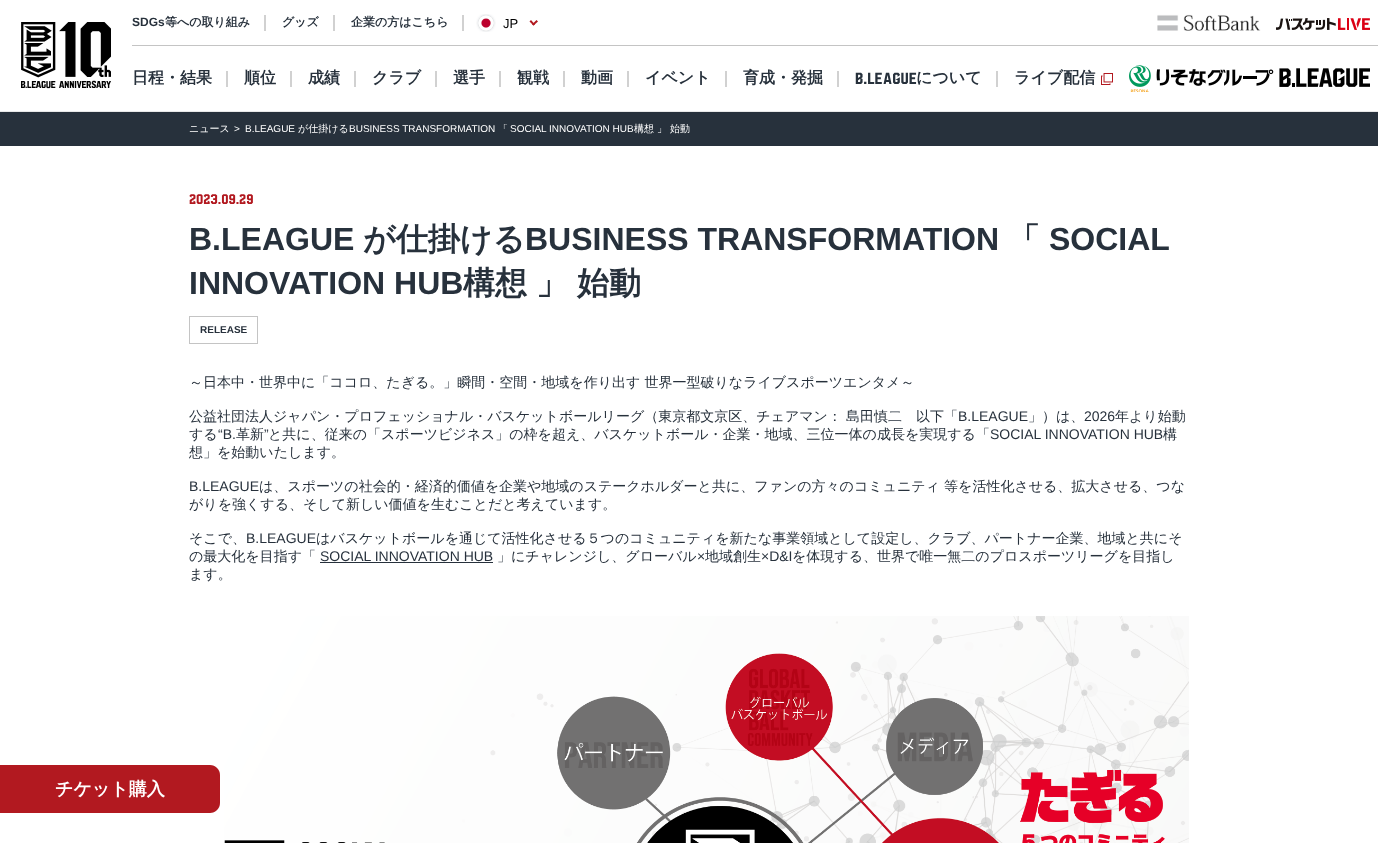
<svg xmlns="http://www.w3.org/2000/svg" width="1378" height="843" viewBox="0 0 1378 843">
  <rect width="100%" height="100%" fill="#ffffff"/>
  <rect x="0" y="111" width="1378" height="1" fill="#e8e8e8"/>
  <image x="21" y="22" width="90" height="67" href="img1.png"/>
  <rect x="132" y="45" width="1246" height="1" fill="#c4c4c4"/>
  <text x="132" y="26" font-family="Liberation Sans" font-size="12" font-weight="bold" fill="#27313c">SDGs</text>
  <text x="165" y="26" font-family="WenQuanYi Zen Hei" font-size="12" font-weight="bold" fill="#27313c">等への取り組み</text>
  <rect x="264" y="15" width="2" height="16" fill="#d1d1d1"/>
  <text x="282" y="26" font-family="WenQuanYi Zen Hei" font-size="12" font-weight="bold" fill="#27313c">グッズ</text>
  <rect x="333" y="15" width="2" height="16" fill="#d1d1d1"/>
  <text x="351" y="26" font-family="WenQuanYi Zen Hei" font-size="12" font-weight="bold" fill="#27313c">企業の方はこちら</text>
  <rect x="462" y="15" width="2" height="16" fill="#d1d1d1"/>
  <image x="476" y="14" width="20" height="18" href="img2.png"/>
  <text x="503" y="28" font-family="Liberation Sans" font-size="13" fill="#000000">JP</text>
  <path d="M536.5 20L538 21.5L533.5 25.5L532 24.5Z" fill="#b21920"/>
  <path d="M531 20L535 24.5L533.5 25.5L529.5 21.5Z" fill="#b21920"/>
  <image x="1157" y="14" width="104" height="17" href="img3.png"/>
  <image x="1276" y="18" width="94" height="12" href="img4.png"/>
  <text x="132" y="83" font-family="WenQuanYi Zen Hei" font-size="16" font-weight="bold" fill="#27313c">日程・結果</text>
  <rect x="226" y="71" width="2" height="16" fill="#d1d1d1"/>
  <text x="244" y="83" font-family="WenQuanYi Zen Hei" font-size="16" font-weight="bold" fill="#27313c">順位</text>
  <rect x="290" y="71" width="2" height="16" fill="#d1d1d1"/>
  <text x="308" y="83" font-family="WenQuanYi Zen Hei" font-size="16" font-weight="bold" fill="#27313c">成績</text>
  <rect x="354" y="71" width="2" height="16" fill="#d1d1d1"/>
  <text x="372" y="83" font-family="WenQuanYi Zen Hei" font-size="16" font-weight="bold" fill="#27313c">クラブ</text>
  <rect x="435" y="71" width="2" height="16" fill="#d1d1d1"/>
  <text x="453" y="83" font-family="WenQuanYi Zen Hei" font-size="16" font-weight="bold" fill="#27313c">選手</text>
  <rect x="499" y="71" width="2" height="16" fill="#d1d1d1"/>
  <text x="517" y="83" font-family="WenQuanYi Zen Hei" font-size="16" font-weight="bold" fill="#27313c">観戦</text>
  <rect x="563" y="71" width="2" height="16" fill="#d1d1d1"/>
  <text x="581" y="83" font-family="WenQuanYi Zen Hei" font-size="16" font-weight="bold" fill="#27313c">動画</text>
  <rect x="627" y="71" width="2" height="16" fill="#d1d1d1"/>
  <text x="645" y="83" font-family="WenQuanYi Zen Hei" font-size="16" font-weight="bold" fill="#27313c">イベント</text>
  <rect x="725" y="71" width="2" height="16" fill="#d1d1d1"/>
  <text x="743" y="83" font-family="WenQuanYi Zen Hei" font-size="16" font-weight="bold" fill="#27313c">育成・発掘</text>
  <rect x="837" y="71" width="2" height="16" fill="#d1d1d1"/>
  <text x="855" y="84" font-family="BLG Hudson" font-size="16" font-weight="bold" fill="#27313c">B.LEAGUE</text>
  <text x="916" y="83" font-family="WenQuanYi Zen Hei" font-size="16" font-weight="bold" fill="#27313c">について</text>
  <rect x="996" y="71" width="2" height="16" fill="#d1d1d1"/>
  <text x="1014" y="83" font-family="WenQuanYi Zen Hei" font-size="16" font-weight="bold" fill="#27313c">ライブ配信</text>
  <image x="1101" y="73" width="12" height="12" href="img5.png"/>
  <image x="1129" y="65" width="241" height="27" href="img6.png"/>
  <rect x="0" y="112" width="1378" height="34" fill="#27313c"/>
  <text x="189" y="132" font-family="WenQuanYi Zen Hei" font-size="10" font-weight="500" fill="#ffffff">ニュース</text>
  <text x="234" y="132" font-family="Liberation Sans" font-size="10" fill="#ffffff">&gt;</text>
  <text x="245" y="132" font-family="Liberation Sans" font-size="10" fill="#ffffff">B.LEAGUE</text>
  <text x="298" y="132" font-family="WenQuanYi Zen Hei" font-size="10" font-weight="500" fill="#ffffff">が仕掛ける</text>
  <text x="349" y="132" font-family="Liberation Sans" font-size="10" fill="#ffffff">BUSINESS TRANSFORMATION</text>
  <text x="498" y="132" font-family="WenQuanYi Zen Hei" font-size="10" font-weight="500" fill="#ffffff">「</text>
  <text x="510" y="132" font-family="Liberation Sans" font-size="10" fill="#ffffff">SOCIAL INNOVATION HUB</text>
  <text x="634" y="132" font-family="WenQuanYi Zen Hei" font-size="10" font-weight="500" fill="#ffffff">構想 」 始動</text>
  <text x="189" y="204" font-family="BLG Hudson" font-size="14" font-weight="bold" fill="#b21920">2023.09.29</text>
  <text x="189" y="250" font-family="Liberation Sans" font-size="32" font-weight="bold" fill="#27313c">B.LEAGUE</text>
  <text x="363" y="250" font-family="WenQuanYi Zen Hei" font-size="32" font-weight="bold" fill="#27313c">が仕掛ける</text>
  <text x="525" y="250" font-family="Liberation Sans" font-size="32" font-weight="bold" fill="#27313c">BUSINESS TRANSFORMATION</text>
  <text x="1008" y="250" font-family="WenQuanYi Zen Hei" font-size="32" font-weight="bold" fill="#27313c">「</text>
  <text x="1049" y="250" font-family="Liberation Sans" font-size="32" font-weight="bold" fill="#27313c">SOCIAL</text>
  <text x="189" y="294" font-family="Liberation Sans" font-size="32" font-weight="bold" fill="#27313c">INNOVATION HUB</text>
  <text x="463" y="294" font-family="WenQuanYi Zen Hei" font-size="32" font-weight="bold" fill="#27313c">構想</text>
  <text x="536" y="294" font-family="WenQuanYi Zen Hei" font-size="32" font-weight="bold" fill="#27313c">」</text>
  <text x="577" y="294" font-family="WenQuanYi Zen Hei" font-size="32" font-weight="bold" fill="#27313c">始動</text>
  <rect x="189.5" y="316.5" width="68" height="27" fill="none" stroke="#c4c4c4"/>
  <text x="200" y="333" font-family="Liberation Sans" font-size="10" font-weight="bold" fill="#27313c">RELEASE</text>
  <text x="189" y="387" font-family="WenQuanYi Zen Hei" font-size="14" font-weight="500" fill="#27313c">～日本中・世界中に「ココロ、たぎる。」瞬間・空間・地域を作り出す 世界一型破りなライブスポーツエンタメ～</text>
  <text x="189" y="421" font-family="WenQuanYi Zen Hei" font-size="14" font-weight="500" fill="#27313c">公益社団法人ジャパン・プロフェッショナル・バスケットボールリーグ（東京都文京区、チェアマン： 島田慎二　以下「</text>
  <text x="958" y="421" font-family="Liberation Sans" font-size="14" fill="#27313c">B.LEAGUE</text>
  <text x="1028" y="421" font-family="WenQuanYi Zen Hei" font-size="14" font-weight="500" fill="#27313c">」）は、</text>
  <text x="1084" y="421" font-family="Liberation Sans" font-size="14" fill="#27313c">2026</text>
  <text x="1115" y="421" font-family="WenQuanYi Zen Hei" font-size="14" font-weight="500" fill="#27313c">年より始動</text>
  <text x="189" y="439" font-family="WenQuanYi Zen Hei" font-size="14" font-weight="500" fill="#27313c">する</text>
  <text x="218" y="439" font-family="Liberation Sans" font-size="14" fill="#27313c">“B.</text>
  <text x="236" y="439" font-family="WenQuanYi Zen Hei" font-size="14" font-weight="500" fill="#27313c">革新</text>
  <text x="264" y="439" font-family="Liberation Sans" font-size="14" fill="#27313c">”</text>
  <text x="268" y="439" font-family="WenQuanYi Zen Hei" font-size="14" font-weight="500" fill="#27313c">と共に、従来の「スポーツビジネス」の枠を超え、バスケットボール・企業・地域、三位一体の成長を実現する「</text>
  <text x="990" y="439" font-family="Liberation Sans" font-size="14" fill="#27313c">SOCIAL INNOVATION HUB</text>
  <text x="1163" y="439" font-family="WenQuanYi Zen Hei" font-size="14" font-weight="500" fill="#27313c">構</text>
  <text x="189" y="457" font-family="WenQuanYi Zen Hei" font-size="14" font-weight="500" fill="#27313c">想」を始動いたします。</text>
  <text x="189" y="491" font-family="Liberation Sans" font-size="14" fill="#27313c">B.LEAGUE</text>
  <text x="259" y="491" font-family="WenQuanYi Zen Hei" font-size="14" font-weight="500" fill="#27313c">は、スポーツの社会的・経済的価値を企業や地域のステークホルダーと共に、ファンの方々のコミュニティ 等を活性化させる、拡大させる、つな</text>
  <text x="189" y="509" font-family="WenQuanYi Zen Hei" font-size="14" font-weight="500" fill="#27313c">がりを強くする、そして新しい価値を生むことだと考えています。</text>
  <text x="189" y="543" font-family="WenQuanYi Zen Hei" font-size="14" font-weight="500" fill="#27313c">そこで、</text>
  <text x="246" y="543" font-family="Liberation Sans" font-size="14" fill="#27313c">B.LEAGUE</text>
  <text x="316" y="543" font-family="WenQuanYi Zen Hei" font-size="14" font-weight="500" fill="#27313c">はバスケットボールを通じて活性化させる５つのコミュニティを新たな事業領域として設定し、クラブ、パートナー企業、地域と共にそ</text>
  <text x="189" y="561" font-family="WenQuanYi Zen Hei" font-size="14" font-weight="500" fill="#27313c">の最大化を目指す「</text>
  <text x="320" y="561" font-family="Liberation Sans" font-size="14" fill="#27313c">SOCIAL INNOVATION HUB</text>
  <rect x="320" y="562" width="173" height="1" fill="#27313c"/>
  <text x="497" y="561" font-family="WenQuanYi Zen Hei" font-size="14" font-weight="500" fill="#27313c">」にチャレンジし、グローバル</text>
  <text x="697" y="561" font-family="Liberation Sans" font-size="14" fill="#27313c">×</text>
  <text x="705" y="561" font-family="WenQuanYi Zen Hei" font-size="14" font-weight="500" fill="#27313c">地域創生</text>
  <text x="761" y="561" font-family="Liberation Sans" font-size="14" fill="#27313c">×D&amp;I</text>
  <text x="792" y="561" font-family="WenQuanYi Zen Hei" font-size="14" font-weight="500" fill="#27313c">を体現する、世界で唯一無二のプロスポーツリーグを目指し</text>
  <text x="189" y="579" font-family="WenQuanYi Zen Hei" font-size="14" font-weight="500" fill="#27313c">ます。</text>
  <image x="224" y="616" width="965" height="227" href="img7.png"/>
  <path d="M0 765H210C215.5 765 220 769.5 220 775V803C220 808.5 215.5 813 210 813H0Z" fill="#b21920"/>
  <text x="55" y="795" font-family="WenQuanYi Zen Hei" font-size="18" font-weight="bold" fill="#ffffff">チケット購入</text>
</svg>
